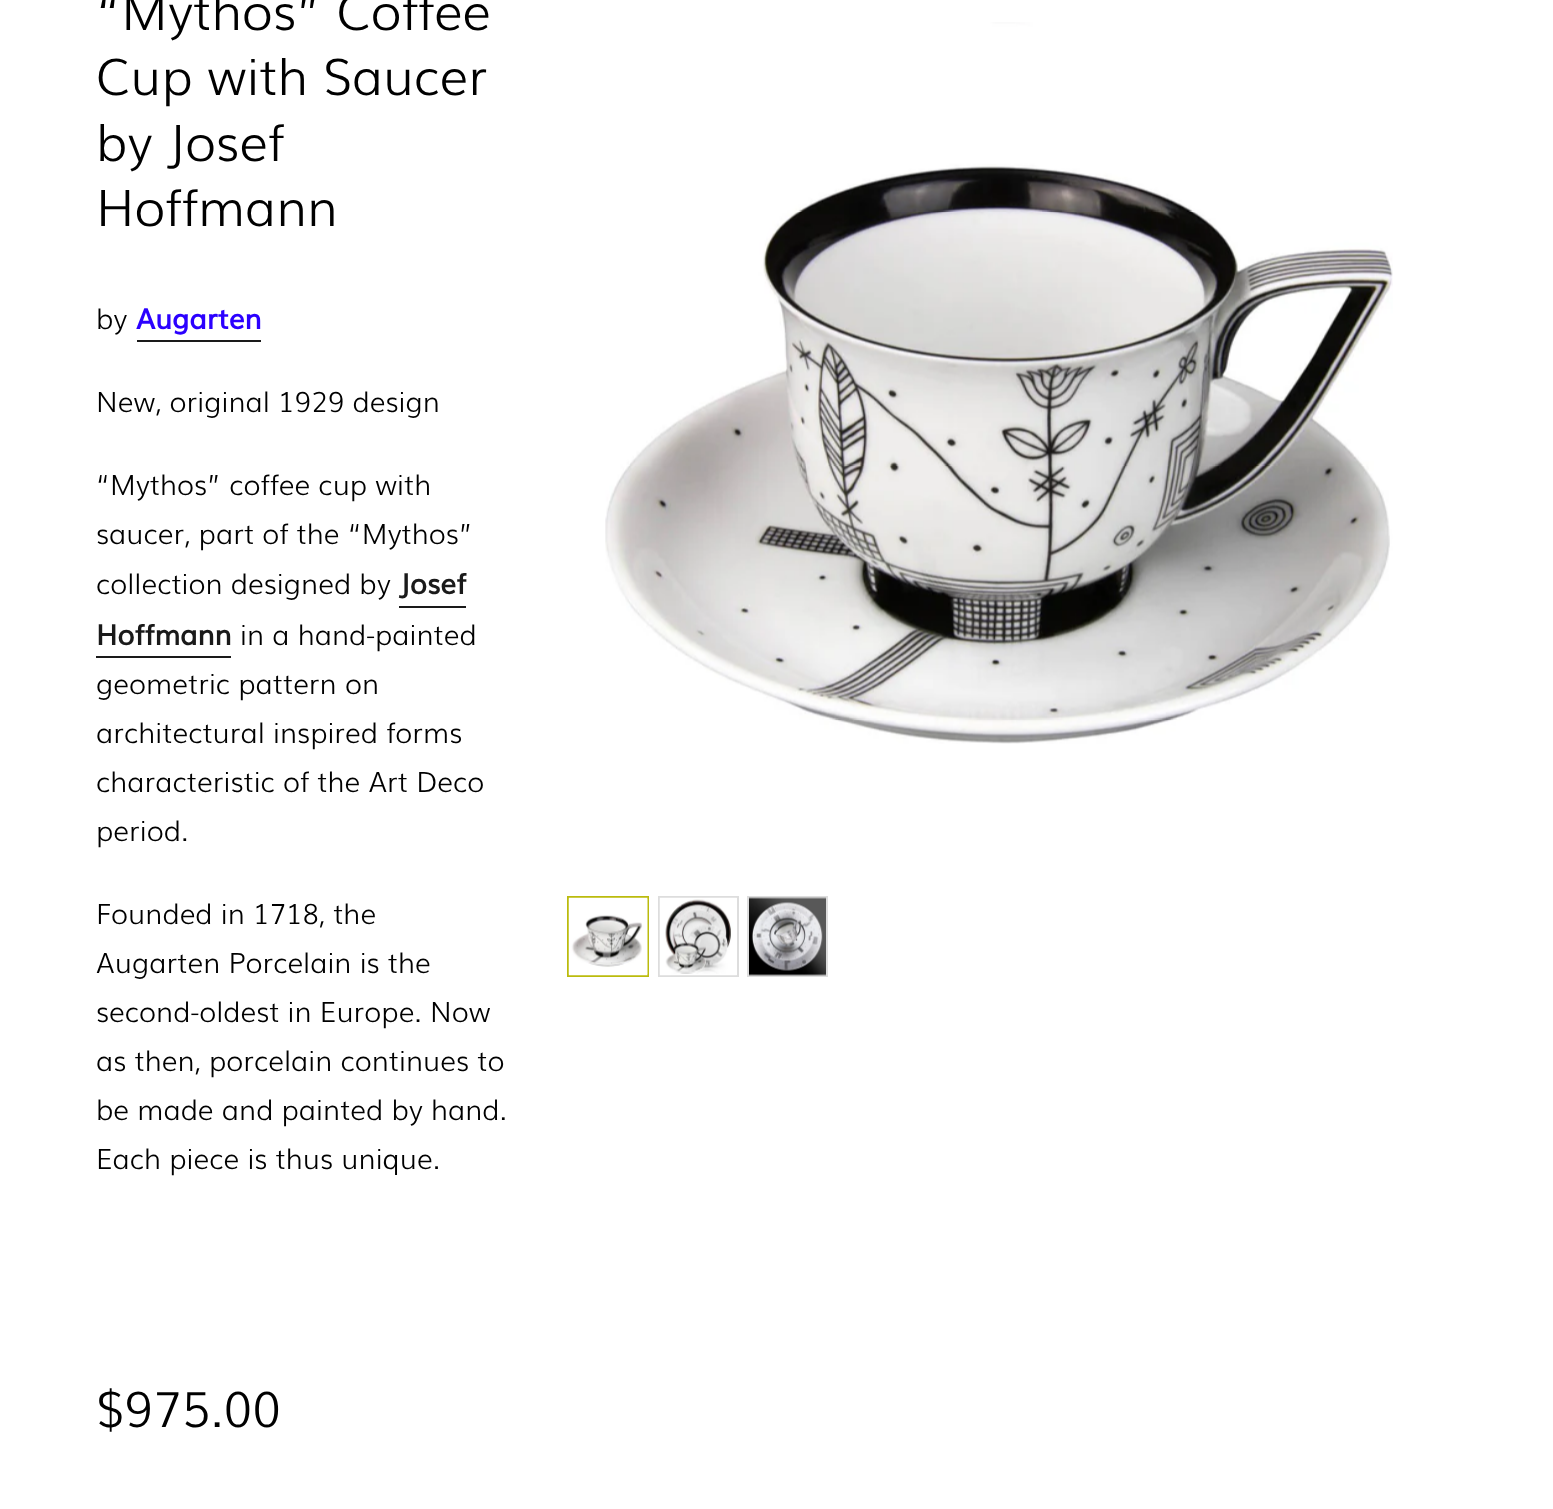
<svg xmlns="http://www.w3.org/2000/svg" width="1553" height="1509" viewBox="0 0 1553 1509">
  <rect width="100%" height="100%" fill="#ffffff"/>
  <text x="96" y="30" font-family="Muli" font-size="50.5" font-weight="300" fill="#000000">“Mythos” Coffee</text>
  <text x="96" y="95" font-family="Muli" font-size="50.5" font-weight="300" fill="#000000">Cup with Saucer</text>
  <text x="96" y="161" font-family="Muli" font-size="50.5" font-weight="300" fill="#000000">by Josef</text>
  <text x="96" y="226" font-family="Muli" font-size="50.5" font-weight="300" fill="#000000">Hoffmann</text>
  <text x="96" y="329" font-family="Muli" font-size="28" font-weight="300" fill="#000000">by</text>
  <text x="136" y="329" font-family="Muli" font-size="28" font-weight="bold" fill="#2b00ff">Augarten</text>
  <rect x="137" y="340" width="124" height="2" fill="#1a1a1a"/>
  <text x="96" y="412" font-family="Muli" font-size="28" font-weight="300" fill="#000000">New, original 1929 design</text>
  <text x="96" y="495" font-family="Muli" font-size="28" font-weight="300" fill="#000000">“Mythos” coffee cup with</text>
  <text x="96" y="544" font-family="Muli" font-size="28" font-weight="300" fill="#000000">saucer, part of the “Mythos”</text>
  <text x="96" y="594" font-family="Muli" font-size="28" font-weight="300" fill="#000000">collection designed by</text>
  <text x="399" y="594" font-family="Muli" font-size="28" font-weight="bold" fill="#1a1a1a">Josef</text>
  <rect x="399" y="606" width="67" height="2" fill="#1a1a1a"/>
  <text x="96" y="645" font-family="Muli" font-size="28" font-weight="bold" fill="#1a1a1a">Hoffmann</text>
  <rect x="96" y="656" width="135" height="2" fill="#1a1a1a"/>
  <text x="240" y="645" font-family="Muli" font-size="28" font-weight="300" fill="#000000">in a hand-painted</text>
  <text x="96" y="694" font-family="Muli" font-size="28" font-weight="300" fill="#000000">geometric pattern on</text>
  <text x="96" y="743" font-family="Muli" font-size="28" font-weight="300" fill="#000000">architectural inspired forms</text>
  <text x="96" y="792" font-family="Muli" font-size="28" font-weight="300" fill="#000000">characteristic of the Art Deco</text>
  <text x="96" y="841" font-family="Muli" font-size="28" font-weight="300" fill="#000000">period.</text>
  <text x="96" y="924" font-family="Muli" font-size="28" font-weight="300" fill="#000000">Founded in 1718, the</text>
  <text x="96" y="973" font-family="Muli" font-size="28" font-weight="300" fill="#000000">Augarten Porcelain is the</text>
  <text x="96" y="1022" font-family="Muli" font-size="28" font-weight="300" fill="#000000">second-oldest in Europe. Now</text>
  <text x="96" y="1071" font-family="Muli" font-size="28" font-weight="300" fill="#000000">as then, porcelain continues to</text>
  <text x="96" y="1120" font-family="Muli" font-size="28" font-weight="300" fill="#000000">be made and painted by hand.</text>
  <text x="96" y="1169" font-family="Muli" font-size="28" font-weight="300" fill="#000000">Each piece is thus unique.</text>
  <text x="96" y="1427" font-family="Muli" font-size="49" font-weight="300" fill="#000000">$975.00</text>
  <image x="605" y="22" width="788" height="722" href="img1.png"/>
  <rect x="568" y="897" width="80" height="79" fill="none" stroke="#bbbb0d" stroke-width="2"/>
  <image x="568" y="897" width="80" height="79" href="img2.png"/>
  <rect x="659" y="897" width="79" height="79" fill="none" stroke="#dddddd" stroke-width="2"/>
  <image x="659" y="897" width="78" height="79" href="img3.png"/>
  <rect x="748" y="897" width="79" height="79" fill="none" stroke="#dddddd" stroke-width="2"/>
  <image x="749" y="897" width="77" height="79" href="img4.png"/>
</svg>
